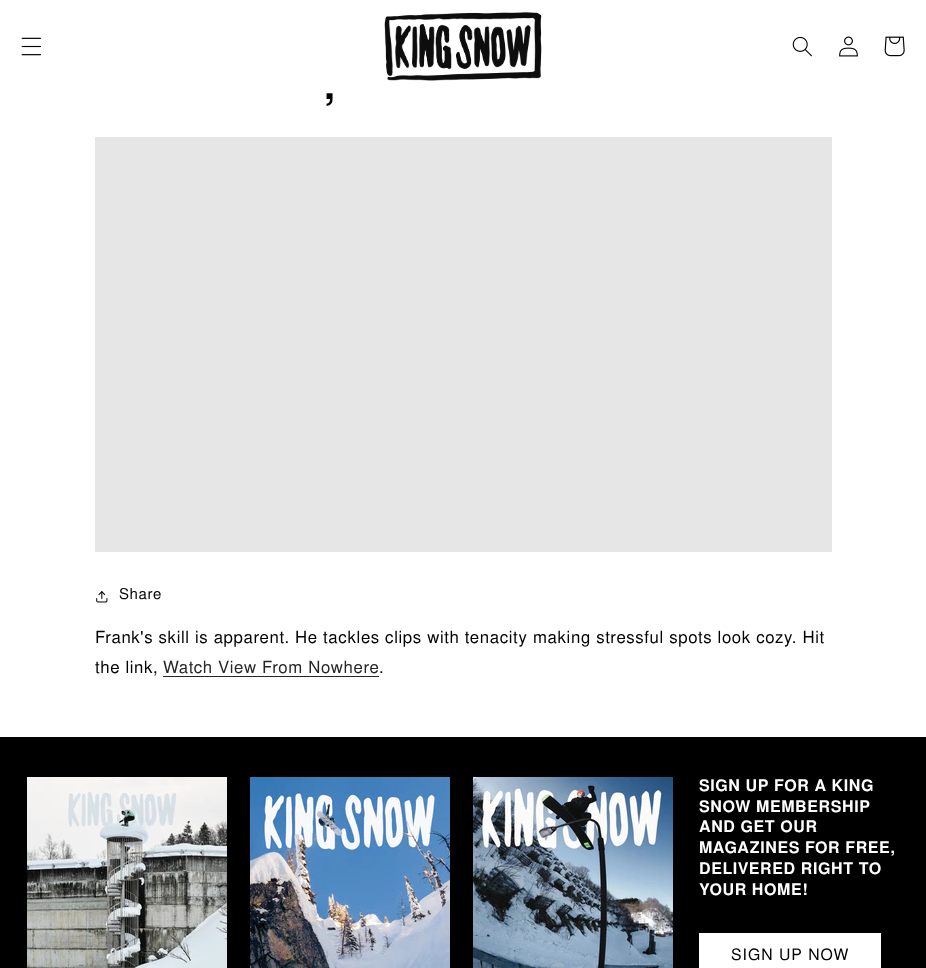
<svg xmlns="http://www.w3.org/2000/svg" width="926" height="968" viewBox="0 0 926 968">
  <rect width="100%" height="100%" fill="#ffffff"/>
  <image x="21" y="37" width="20" height="19" href="img1.png"/>
  <image x="384" y="12" width="158" height="69" href="img2.png"/>
  <image x="792" y="36" width="20" height="21" href="img3.png"/>
  <image x="839" y="36" width="19" height="21" href="img4.png"/>
  <image x="884" y="36" width="21" height="21" href="img5.png"/>
  <text x="324" y="99" font-family="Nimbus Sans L" font-size="40" font-weight="bold" letter-spacing="0.6" fill="#000000">,</text>
  <rect x="95" y="137" width="737" height="415" fill="#e6e6e6"/>
  <image x="96" y="591" width="12" height="12" href="img6.png"/>
  <text x="119" y="599" font-family="Nimbus Sans L" font-size="15" letter-spacing="0.63" fill="#000000">Share</text>
  <text x="95" y="643" font-family="Nimbus Sans L" font-size="16.8" letter-spacing="0.63" fill="#000000">Frank's skill is apparent. He tackles clips with tenacity making stressful spots look cozy. Hit</text>
  <text x="95" y="673" font-family="Nimbus Sans L" font-size="16.8" letter-spacing="0.63" fill="#000000">the link,</text>
  <text x="163" y="673" font-family="Nimbus Sans L" font-size="16.8" letter-spacing="0.63" fill="#262626">Watch View From Nowhere</text>
  <rect x="163" y="676" width="216" height="1" fill="#262626"/>
  <text x="379" y="673" font-family="Nimbus Sans L" font-size="16.8" letter-spacing="0.63" fill="#000000">.</text>
  <rect x="0" y="737" width="926" height="231" fill="#000000"/>
  <image x="27" y="777" width="200" height="191" href="img7.png"/>
  <image x="250" y="777" width="200" height="191" href="img8.png"/>
  <image x="473" y="777" width="200" height="191" href="img9.png"/>
  <text x="699" y="791" font-family="Nimbus Sans L" font-size="16" font-weight="bold" letter-spacing="0.6" fill="#ffffff">SIGN UP FOR A KING</text>
  <text x="699" y="812" font-family="Nimbus Sans L" font-size="16" font-weight="bold" letter-spacing="0.6" fill="#ffffff">SNOW MEMBERSHIP</text>
  <text x="699" y="832" font-family="Nimbus Sans L" font-size="16" font-weight="bold" letter-spacing="0.6" fill="#ffffff">AND GET OUR</text>
  <text x="699" y="853" font-family="Nimbus Sans L" font-size="16" font-weight="bold" letter-spacing="0.6" fill="#ffffff">MAGAZINES FOR FREE,</text>
  <text x="699" y="874" font-family="Nimbus Sans L" font-size="16" font-weight="bold" letter-spacing="0.6" fill="#ffffff">DELIVERED RIGHT TO</text>
  <text x="699" y="895" font-family="Nimbus Sans L" font-size="16" font-weight="bold" letter-spacing="0.6" fill="#ffffff">YOUR HOME!</text>
  <rect x="699" y="933" width="182" height="35" fill="#ffffff"/>
  <text x="731" y="960" font-family="Nimbus Sans L" font-size="15.75" letter-spacing="1" fill="#000000">SIGN UP NOW</text>
</svg>
